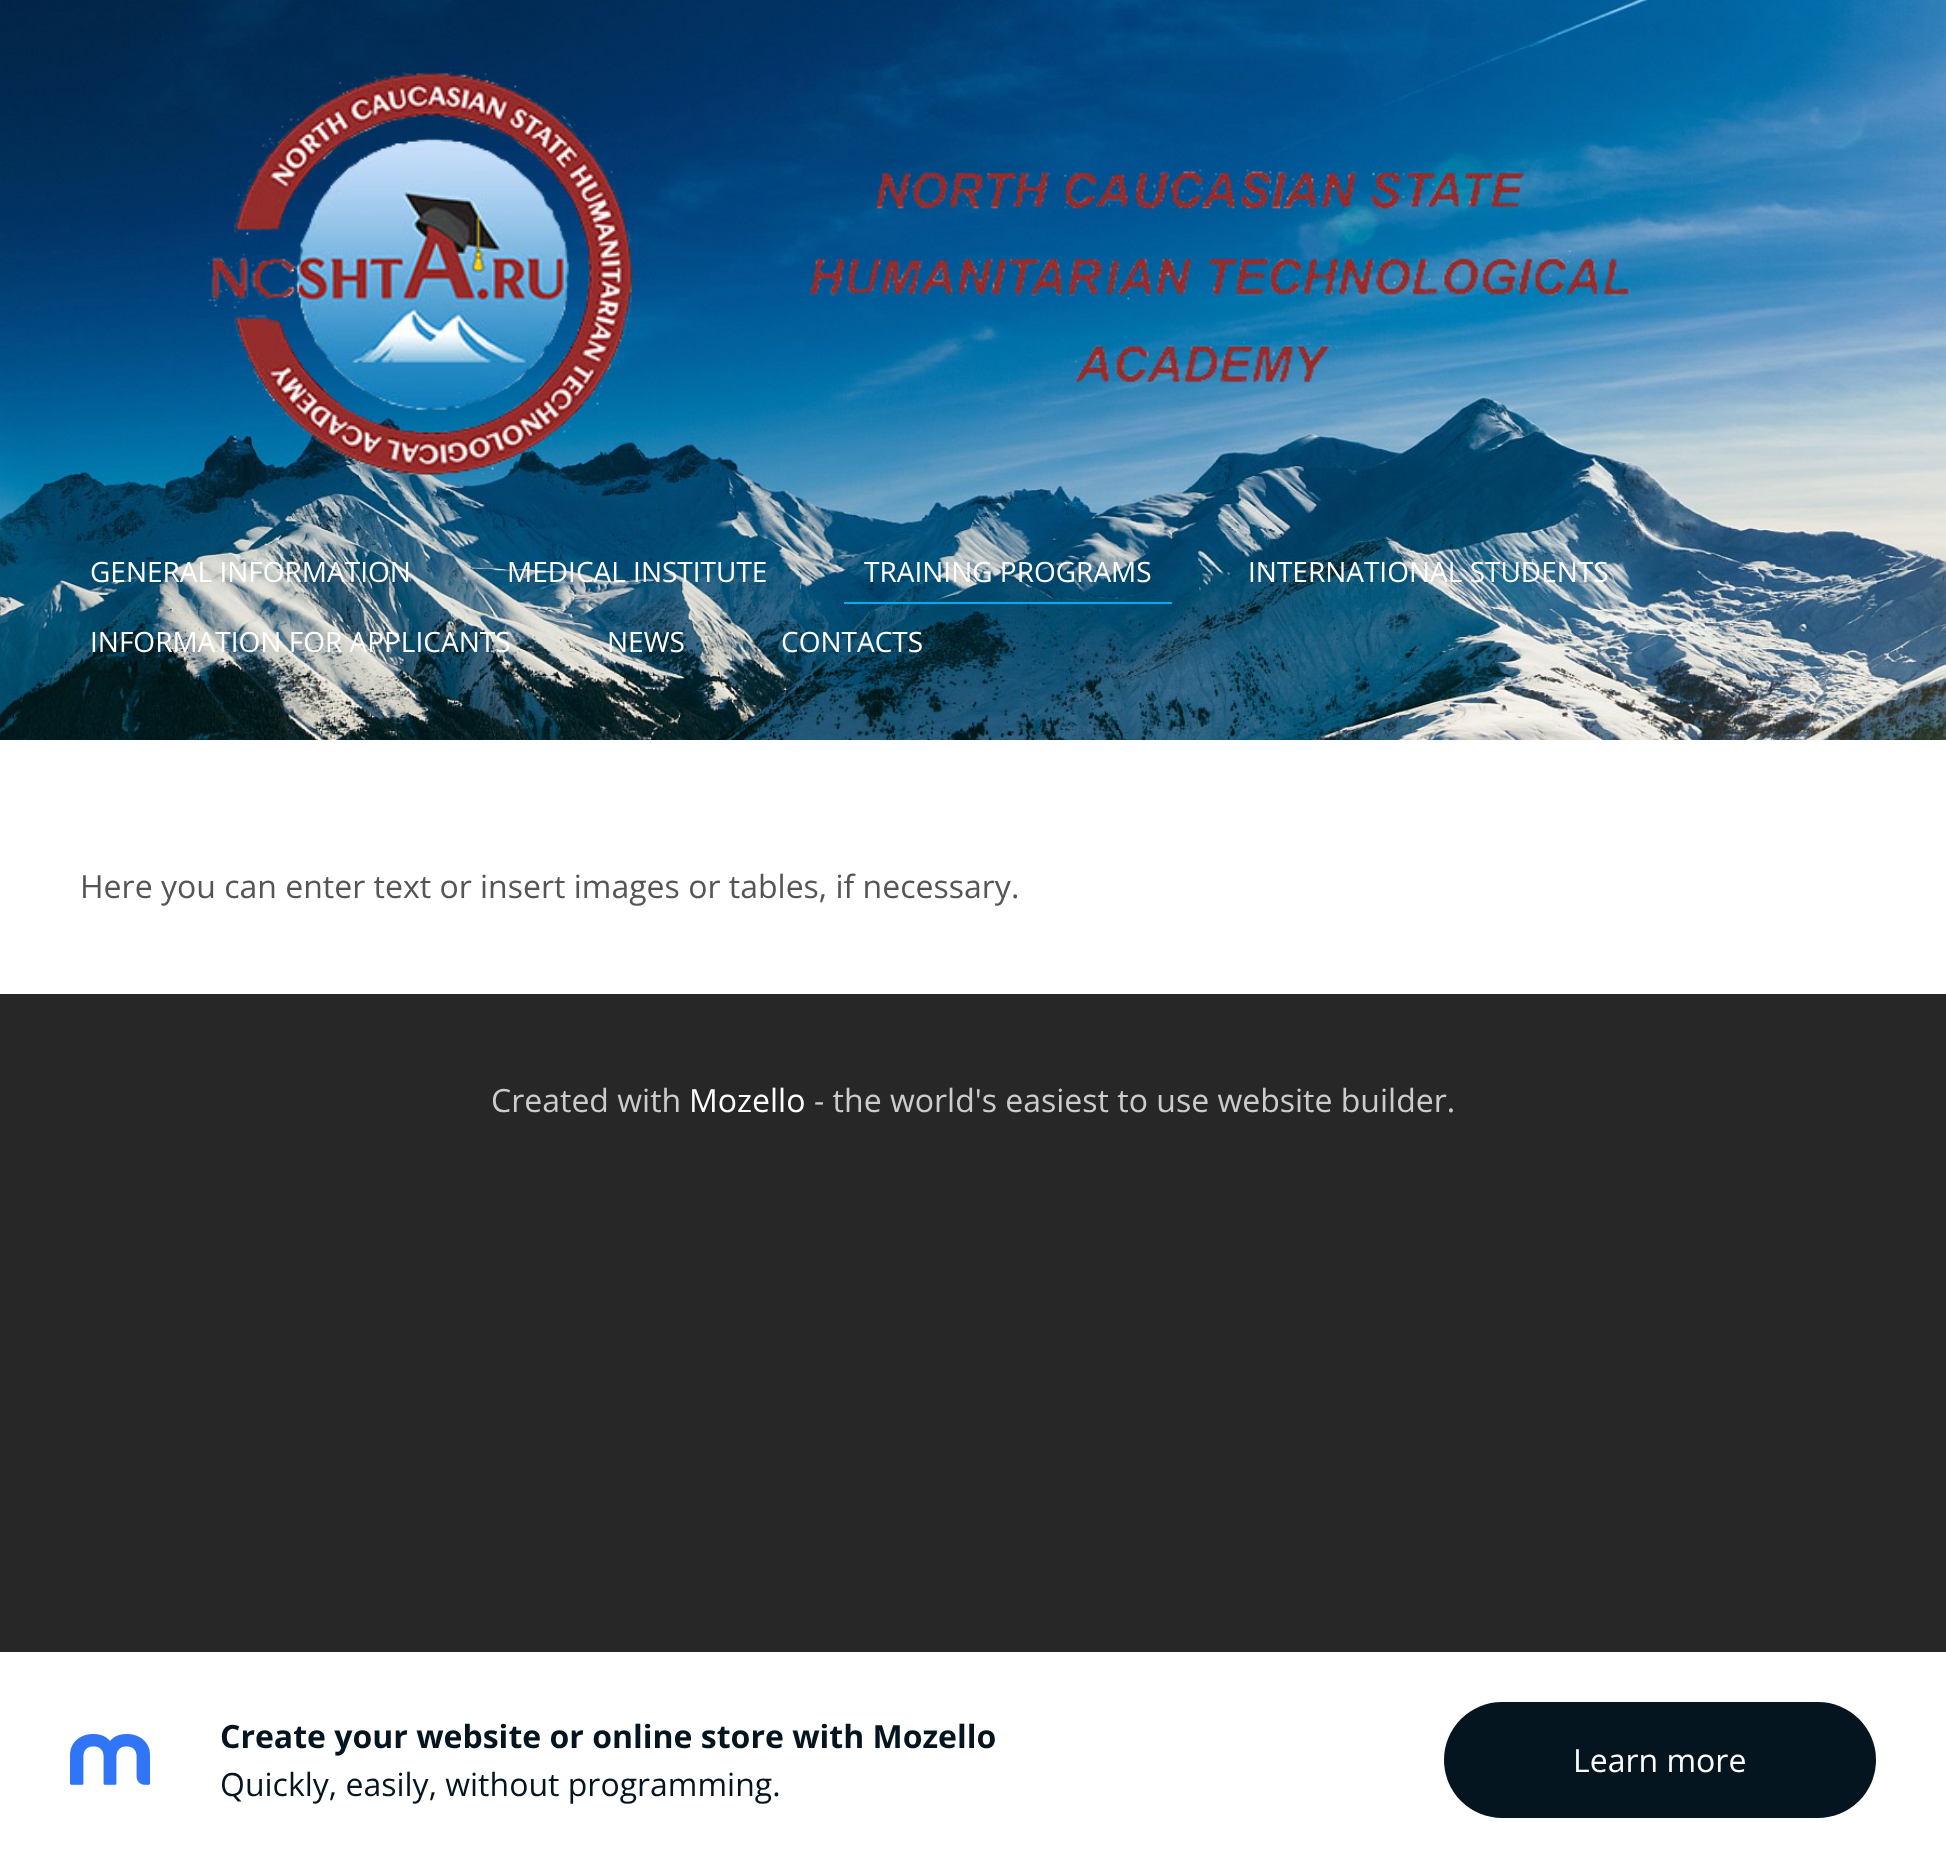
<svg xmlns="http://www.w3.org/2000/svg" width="1946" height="1868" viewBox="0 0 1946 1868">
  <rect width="100%" height="100%" fill="#272727"/>
  <image x="0" y="0" width="1946" height="740" href="img1.png"/>
  <image x="207" y="71" width="1424" height="404" href="img2.png"/>
  <text x="90" y="582" font-family="Open Sans" font-size="28" fill="#ffffff">GENERAL INFORMATION</text>
  <text x="507" y="582" font-family="Open Sans" font-size="28" fill="#ffffff">MEDICAL INSTITUTE</text>
  <rect x="844" y="602" width="328" height="2" fill="#00aeef"/>
  <text x="864" y="582" font-family="Open Sans" font-size="28" fill="#ffffff">TRAINING PROGRAMS</text>
  <text x="1248" y="582" font-family="Open Sans" font-size="28" fill="#ffffff">INTERNATIONAL STUDENTS</text>
  <text x="90" y="652" font-family="Open Sans" font-size="28" fill="#ffffff">INFORMATION FOR APPLICANTS</text>
  <text x="607" y="652" font-family="Open Sans" font-size="28" fill="#ffffff">NEWS</text>
  <text x="781" y="652" font-family="Open Sans" font-size="28" fill="#ffffff">CONTACTS</text>
  <rect x="0" y="740" width="1946" height="254" fill="#ffffff"/>
  <text x="80" y="898" font-family="Open Sans" font-size="32" fill="#555555">Here you can enter text or insert images or tables, if necessary.</text>
  <text x="491" y="1112" font-family="Open Sans" font-size="32" fill="#cccccc">Created with</text>
  <text x="689" y="1112" font-family="Open Sans" font-size="32" fill="#ffffff">Mozello</text>
  <text x="814" y="1112" font-family="Open Sans" font-size="32" fill="#cccccc">- the world's easiest to use website builder.</text>
  <rect x="0" y="1652" width="1946" height="216" fill="#ffffff"/>
  <image x="70" y="1734" width="80" height="51" href="img3.png"/>
  <text x="220" y="1748" font-family="Open Sans" font-size="32" font-weight="bold" fill="#04151f">Create your website or online store with Mozello</text>
  <text x="220" y="1796" font-family="Open Sans" font-size="32" fill="#04151f">Quickly, easily, without programming.</text>
  <rect x="1444" y="1702" width="432" height="116" rx="58" fill="#04151f"/>
  <text x="1573" y="1772" font-family="Open Sans" font-size="32" fill="#ffffff">Learn more</text>
</svg>
